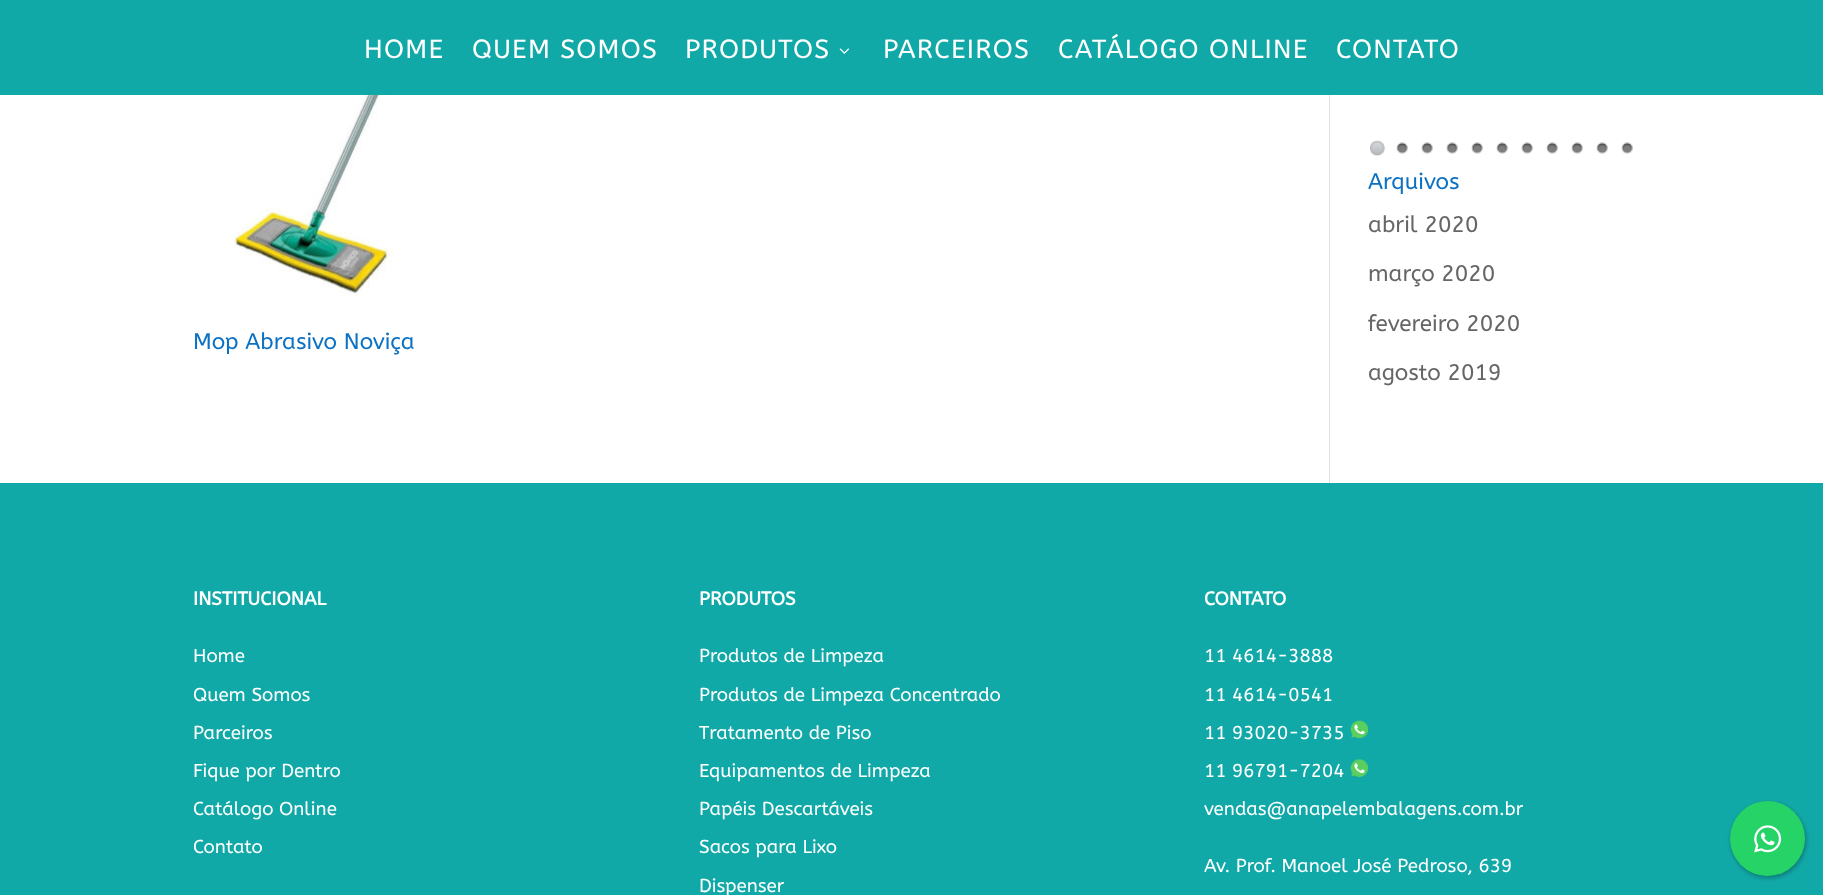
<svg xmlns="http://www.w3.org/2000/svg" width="1823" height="895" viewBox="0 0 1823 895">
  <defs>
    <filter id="blur1" x="-50%" y="-200%" width="200%" height="500%"><feGaussianBlur stdDeviation="2.5"/></filter>
  </defs>
  <rect width="100%" height="100%" fill="#ffffff"/>
  <rect x="0" y="0" width="1823" height="95" fill="#11a9a8"/>
  <text x="364" y="58" font-family="ABeeZee" font-size="26.25" letter-spacing="1.25" fill="#ffffff">HOME</text>
  <text x="472" y="58" font-family="ABeeZee" font-size="26.25" letter-spacing="1.25" fill="#ffffff">QUEM SOMOS</text>
  <text x="685" y="58" font-family="ABeeZee" font-size="26.25" letter-spacing="1.25" fill="#ffffff">PRODUTOS</text>
  <image x="839" y="48" width="10" height="6" href="img1.png"/>
  <text x="883" y="58" font-family="ABeeZee" font-size="26.25" letter-spacing="1.25" fill="#ffffff">PARCEIROS</text>
  <text x="1058" y="58" font-family="ABeeZee" font-size="26.25" letter-spacing="1.25" fill="#ffffff">CATÁLOGO ONLINE</text>
  <text x="1336" y="58" font-family="ABeeZee" font-size="26.25" letter-spacing="1.25" fill="#ffffff">CONTATO</text>
  <rect x="1329" y="95" width="1" height="388" fill="#e2e2e2"/>
  <image x="234" y="95" width="184" height="201" href="img2.png"/>
  <text x="193" y="349" font-family="ABeeZee" font-size="22.5" fill="#0c71c3">Mop Abrasivo Noviça</text>
  <image x="1370" y="140" width="16" height="16" href="img3.png"/>
  <image x="1396" y="142" width="12" height="12" href="img4.png"/>
  <image x="1421" y="142" width="12" height="12" href="img4.png"/>
  <image x="1446" y="142" width="12" height="12" href="img4.png"/>
  <image x="1471" y="142" width="12" height="12" href="img4.png"/>
  <image x="1496" y="142" width="12" height="12" href="img4.png"/>
  <image x="1521" y="142" width="12" height="12" href="img4.png"/>
  <image x="1546" y="142" width="12" height="12" href="img4.png"/>
  <image x="1571" y="142" width="12" height="12" href="img4.png"/>
  <image x="1596" y="142" width="12" height="12" href="img4.png"/>
  <image x="1621" y="142" width="12" height="12" href="img5.png"/>
  <text x="1368" y="189" font-family="ABeeZee" font-size="22.5" fill="#0c71c3">Arquivos</text>
  <text x="1368" y="232" font-family="ABeeZee" font-size="22.5" fill="#666666">abril 2020</text>
  <text x="1368" y="281" font-family="ABeeZee" font-size="22.5" fill="#666666">março 2020</text>
  <text x="1368" y="331" font-family="ABeeZee" font-size="22.5" fill="#666666">fevereiro 2020</text>
  <text x="1368" y="380" font-family="ABeeZee" font-size="22.5" fill="#666666">agosto 2019</text>
  <rect x="0" y="483" width="1823" height="412" fill="#11a9a8"/>
  <text x="193" y="605" font-family="ABeeZee" font-size="18.75" font-weight="bold" fill="#ffffff">INSTITUCIONAL</text>
  <text x="193" y="662" font-family="ABeeZee" font-size="18.75" fill="#ffffff">Home</text>
  <text x="193" y="701" font-family="ABeeZee" font-size="18.75" fill="#ffffff">Quem Somos</text>
  <text x="193" y="739" font-family="ABeeZee" font-size="18.75" fill="#ffffff">Parceiros</text>
  <text x="193" y="777" font-family="ABeeZee" font-size="18.75" fill="#ffffff">Fique por Dentro</text>
  <text x="193" y="815" font-family="ABeeZee" font-size="18.75" fill="#ffffff">Catálogo Online</text>
  <text x="193" y="853" font-family="ABeeZee" font-size="18.75" fill="#ffffff">Contato</text>
  <text x="699" y="605" font-family="ABeeZee" font-size="18.75" font-weight="bold" fill="#ffffff">PRODUTOS</text>
  <text x="699" y="662" font-family="ABeeZee" font-size="18.75" fill="#ffffff">Produtos de Limpeza</text>
  <text x="699" y="701" font-family="ABeeZee" font-size="18.75" fill="#ffffff">Produtos de Limpeza Concentrado</text>
  <text x="699" y="739" font-family="ABeeZee" font-size="18.75" fill="#ffffff">Tratamento de Piso</text>
  <text x="699" y="777" font-family="ABeeZee" font-size="18.75" fill="#ffffff">Equipamentos de Limpeza</text>
  <text x="699" y="815" font-family="ABeeZee" font-size="18.75" fill="#ffffff">Papéis Descartáveis</text>
  <text x="699" y="853" font-family="ABeeZee" font-size="18.75" fill="#ffffff">Sacos para Lixo</text>
  <text x="699" y="892" font-family="ABeeZee" font-size="18.75" fill="#ffffff">Dispenser</text>
  <text x="1204" y="605" font-family="ABeeZee" font-size="18.75" font-weight="bold" fill="#ffffff">CONTATO</text>
  <text x="1204" y="662" font-family="ABeeZee" font-size="18.75" fill="#ffffff">11 4614-3888</text>
  <text x="1204" y="701" font-family="ABeeZee" font-size="18.75" fill="#ffffff">11 4614-0541</text>
  <text x="1204" y="739" font-family="ABeeZee" font-size="18.75" fill="#ffffff">11 93020-3735</text>
  <image x="1350" y="720" width="19" height="19" href="img6.png"/>
  <text x="1204" y="777" font-family="ABeeZee" font-size="18.75" fill="#ffffff">11 96791-7204</text>
  <image x="1350" y="759" width="19" height="19" href="img7.png"/>
  <text x="1204" y="815" font-family="ABeeZee" font-size="18.75" fill="#ffffff">vendas@anapelembalagens.com.br</text>
  <text x="1204" y="872" font-family="ABeeZee" font-size="18.75" fill="#ffffff">Av. Prof. Manoel José Pedroso, 639</text>
  <rect x="1731" y="803" width="75" height="75" rx="37.5" fill="#000000" fill-opacity="0.3" filter="url(#blur1)"/>
  <circle cx="1767.5" cy="838.5" r="37.5" fill="#25d366"/>
  <image x="1754" y="825" width="28" height="28" href="img8.png"/>
</svg>
